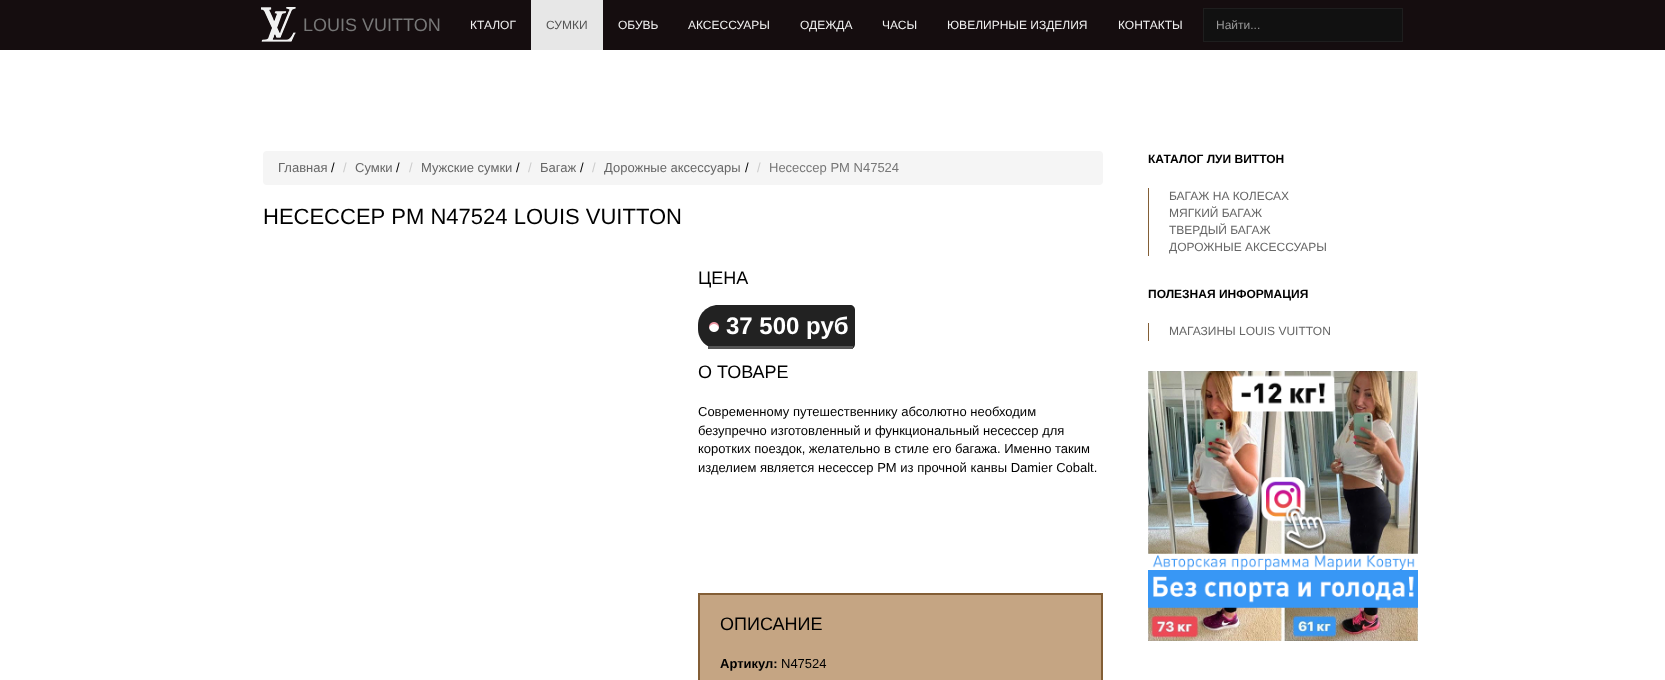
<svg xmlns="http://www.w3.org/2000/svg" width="1665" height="680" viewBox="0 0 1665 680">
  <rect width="100%" height="100%" fill="#ffffff"/>
  <rect x="0" y="0" width="1665" height="50" fill="#150d0f"/>
  <image x="261" y="7" width="35" height="35" href="img1.png"/>
  <text x="303" y="31" font-family="Liberation Sans" font-size="18" fill="#777777">LOUIS VUITTON</text>
  <text x="470" y="29" font-family="Liberation Sans" font-size="12" fill="#f1f1f1">КТАЛОГ</text>
  <rect x="531" y="0" width="72" height="50" fill="#e7e7e7"/>
  <text x="546" y="29" font-family="Liberation Sans" font-size="12" fill="#555555">СУМКИ</text>
  <text x="618" y="29" font-family="Liberation Sans" font-size="12" fill="#f1f1f1">ОБУВЬ</text>
  <text x="688" y="29" font-family="Liberation Sans" font-size="12" fill="#f1f1f1">АКСЕССУАРЫ</text>
  <text x="800" y="29" font-family="Liberation Sans" font-size="12" fill="#f1f1f1">ОДЕЖДА</text>
  <text x="882" y="29" font-family="Liberation Sans" font-size="12" fill="#f1f1f1">ЧАСЫ</text>
  <text x="947" y="29" font-family="Liberation Sans" font-size="12" fill="#f1f1f1">ЮВЕЛИРНЫЕ ИЗДЕЛИЯ</text>
  <text x="1118" y="29" font-family="Liberation Sans" font-size="12" fill="#f1f1f1">КОНТАКТЫ</text>
  <rect x="1203.5" y="8.5" width="199" height="33" fill="#111111" stroke="#1e1e1e"/>
  <text x="1216" y="29" font-family="Liberation Sans" font-size="12" fill="#999999">Найти...</text>
  <rect x="263" y="151" width="840" height="34" rx="4" fill="#f5f5f5"/>
  <text x="278" y="172" font-family="Liberation Sans" font-size="13" fill="#666666">Главная</text>
  <text x="331" y="172" font-family="Liberation Sans" font-size="13" fill="#000000">/</text>
  <text x="343" y="172" font-family="Liberation Sans" font-size="13" fill="#cccccc">/</text>
  <text x="355" y="172" font-family="Liberation Sans" font-size="13" fill="#666666">Сумки</text>
  <text x="396" y="172" font-family="Liberation Sans" font-size="13" fill="#000000">/</text>
  <text x="409" y="172" font-family="Liberation Sans" font-size="13" fill="#cccccc">/</text>
  <text x="421" y="172" font-family="Liberation Sans" font-size="13" fill="#666666">Мужские сумки</text>
  <text x="516" y="172" font-family="Liberation Sans" font-size="13" fill="#000000">/</text>
  <text x="528" y="172" font-family="Liberation Sans" font-size="13" fill="#cccccc">/</text>
  <text x="540" y="172" font-family="Liberation Sans" font-size="13" fill="#666666">Багаж</text>
  <text x="580" y="172" font-family="Liberation Sans" font-size="13" fill="#000000">/</text>
  <text x="592" y="172" font-family="Liberation Sans" font-size="13" fill="#cccccc">/</text>
  <text x="604" y="172" font-family="Liberation Sans" font-size="13" fill="#666666">Дорожные аксессуары</text>
  <text x="745" y="172" font-family="Liberation Sans" font-size="13" fill="#000000">/</text>
  <text x="757" y="172" font-family="Liberation Sans" font-size="13" fill="#cccccc">/</text>
  <text x="769" y="172" font-family="Liberation Sans" font-size="13" fill="#777777">Несессер PM N47524</text>
  <text x="263" y="224" font-family="Liberation Sans" font-size="22" fill="#000000">НЕСЕССЕР PM N47524 LOUIS VUITTON</text>
  <text x="698" y="284" font-family="Liberation Sans" font-size="18" fill="#000000">ЦЕНА</text>
  <path d="M718 305H850C853 305 855 307 855 310V344C855 347 853 349 850 349H718C707 349 698 340 698 329V325C698 314 707 305 718 305Z" fill="#222222"/>
  <image x="709" y="322" width="10" height="10" href="img2.png"/>
  <text x="726" y="334" font-family="Liberation Sans" font-size="24" font-weight="bold" fill="#ffffff">37 500 руб</text>
  <rect x="708" y="346" width="145" height="3" fill="#555555"/>
  <text x="698" y="378" font-family="Liberation Sans" font-size="18" fill="#000000">О ТОВАРЕ</text>
  <text x="698" y="416" font-family="Liberation Sans" font-size="13" fill="#000000">Современному путешественнику абсолютно необходим</text>
  <text x="698" y="435" font-family="Liberation Sans" font-size="13" fill="#000000">безупречно изготовленный и функциональный несессер для</text>
  <text x="698" y="453" font-family="Liberation Sans" font-size="13" fill="#000000">коротких поездок, желательно в стиле его багажа. Именно таким</text>
  <text x="698" y="472" font-family="Liberation Sans" font-size="13" fill="#000000">изделием является несессер PM из прочной канвы Damier Cobalt.</text>
  <rect x="699" y="594" width="403" height="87" fill="#c5a583" stroke="#835e36" stroke-width="2"/>
  <text x="720" y="630" font-family="Liberation Sans" font-size="18" fill="#000000">ОПИСАНИЕ</text>
  <text x="720" y="668" font-family="Liberation Sans" font-size="13" font-weight="bold" fill="#000000">Артикул:</text>
  <text x="781" y="668" font-family="Liberation Sans" font-size="13" fill="#000000">N47524</text>
  <text x="1148" y="163" font-family="Liberation Sans" font-size="12" font-weight="bold" fill="#000000">КАТАЛОГ ЛУИ ВИТТОН</text>
  <rect x="1148" y="188" width="1" height="68" fill="#835e36"/>
  <text x="1169" y="200" font-family="Liberation Sans" font-size="12" fill="#666666">БАГАЖ НА КОЛЕСАХ</text>
  <text x="1169" y="217" font-family="Liberation Sans" font-size="12" fill="#666666">МЯГКИЙ БАГАЖ</text>
  <text x="1169" y="234" font-family="Liberation Sans" font-size="12" fill="#666666">ТВЕРДЫЙ БАГАЖ</text>
  <text x="1169" y="251" font-family="Liberation Sans" font-size="12" fill="#666666">ДОРОЖНЫЕ АКСЕССУАРЫ</text>
  <text x="1148" y="298" font-family="Liberation Sans" font-size="12" font-weight="bold" fill="#000000">ПОЛЕЗНАЯ ИНФОРМАЦИЯ</text>
  <rect x="1148" y="323" width="1" height="18" fill="#835e36"/>
  <text x="1169" y="335" font-family="Liberation Sans" font-size="12" fill="#666666">МАГАЗИНЫ LOUIS VUITTON</text>
  <image x="1148" y="371" width="270" height="270" href="img3.png"/>
</svg>
